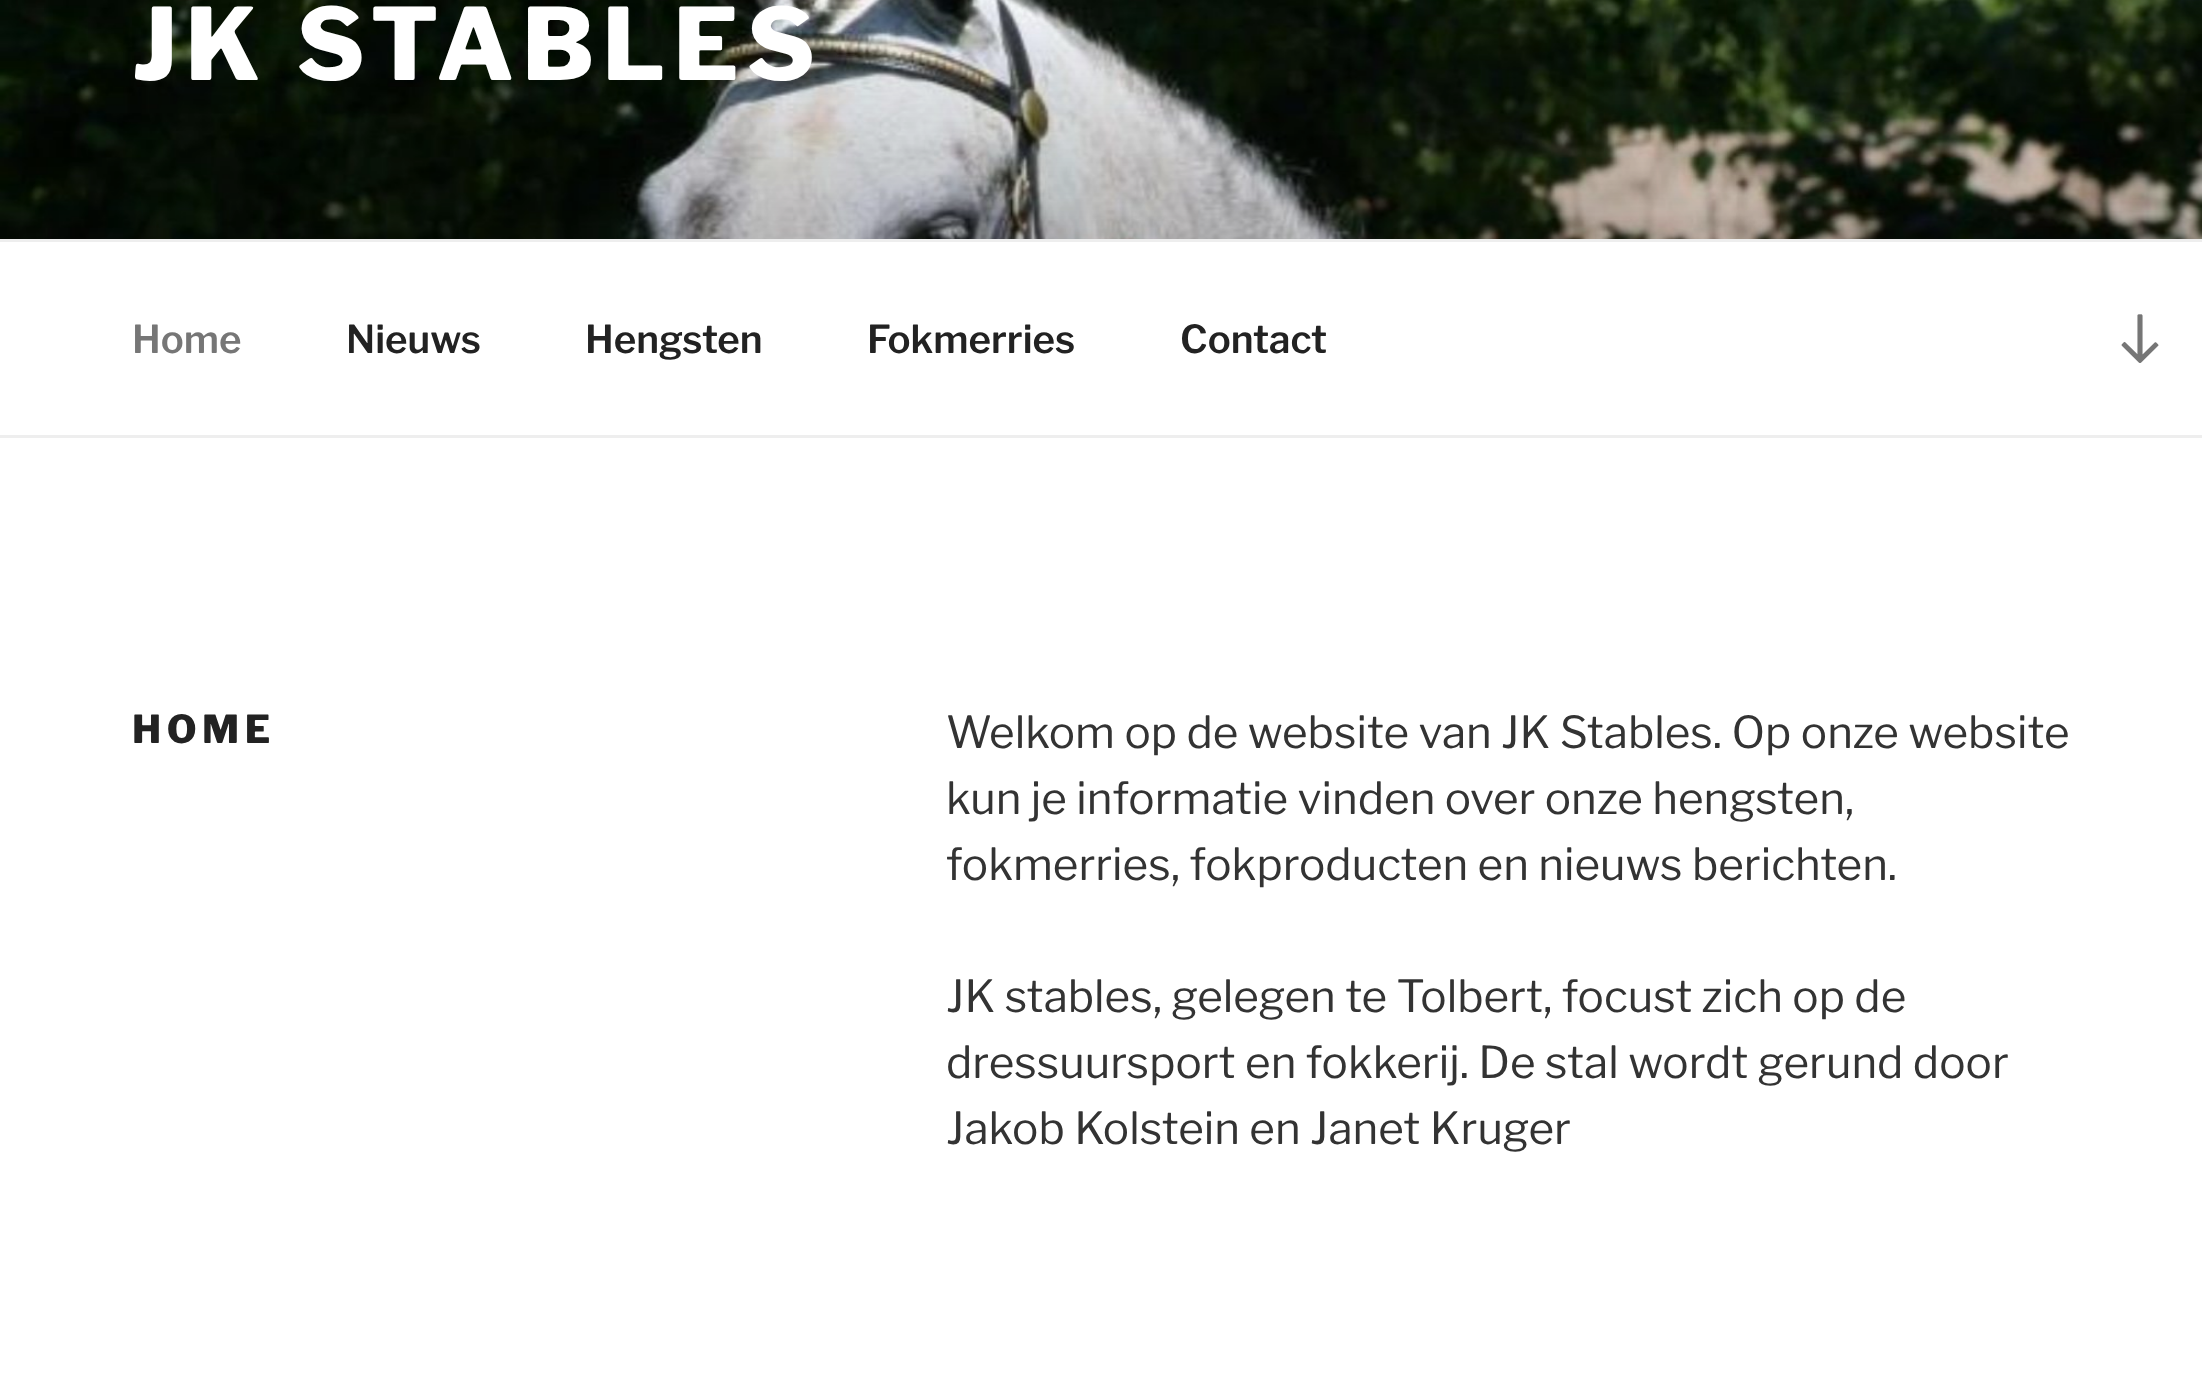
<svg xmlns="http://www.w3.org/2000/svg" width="2202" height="1382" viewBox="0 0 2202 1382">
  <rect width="100%" height="100%" fill="#ffffff"/>
  <image x="0" y="0" width="2202" height="239" href="img1.png"/>
  <text x="132" y="80" font-family="Libre Franklin" font-size="99" font-weight="800" letter-spacing="8" fill="#ffffff">JK STABLES</text>
  <rect x="0" y="239" width="2202" height="3" fill="#eeeeee"/>
  <rect x="0" y="435" width="2202" height="3" fill="#eeeeee"/>
  <text x="132" y="353" font-family="Libre Franklin" font-size="38.5" font-weight="600" fill="#767676">Home</text>
  <text x="346" y="353" font-family="Libre Franklin" font-size="38.5" font-weight="600" fill="#222222">Nieuws</text>
  <text x="585" y="353" font-family="Libre Franklin" font-size="38.5" font-weight="600" fill="#222222">Hengsten</text>
  <text x="867" y="353" font-family="Libre Franklin" font-size="38.5" font-weight="600" fill="#222222">Fokmerries</text>
  <text x="1180" y="353" font-family="Libre Franklin" font-size="38.5" font-weight="600" fill="#222222">Contact</text>
  <image x="2121" y="314" width="38" height="49" href="img2.png"/>
  <text x="132" y="743" font-family="Libre Franklin" font-size="38.5" font-weight="800" letter-spacing="5.5" fill="#222222">HOME</text>
  <text x="946" y="748" font-family="Libre Franklin" font-size="44" fill="#333333">Welkom op de website van JK Stables. Op onze website</text>
  <text x="946" y="814" font-family="Libre Franklin" font-size="44" fill="#333333">kun je informatie vinden over onze hengsten,</text>
  <text x="946" y="880" font-family="Libre Franklin" font-size="44" fill="#333333">fokmerries, fokproducten en nieuws berichten.</text>
  <text x="946" y="1012" font-family="Libre Franklin" font-size="44" fill="#333333">JK stables, gelegen te Tolbert, focust zich op de</text>
  <text x="946" y="1078" font-family="Libre Franklin" font-size="44" fill="#333333">dressuursport en fokkerij. De stal wordt gerund door</text>
  <text x="946" y="1144" font-family="Libre Franklin" font-size="44" fill="#333333">Jakob Kolstein en Janet Kruger</text>
</svg>
